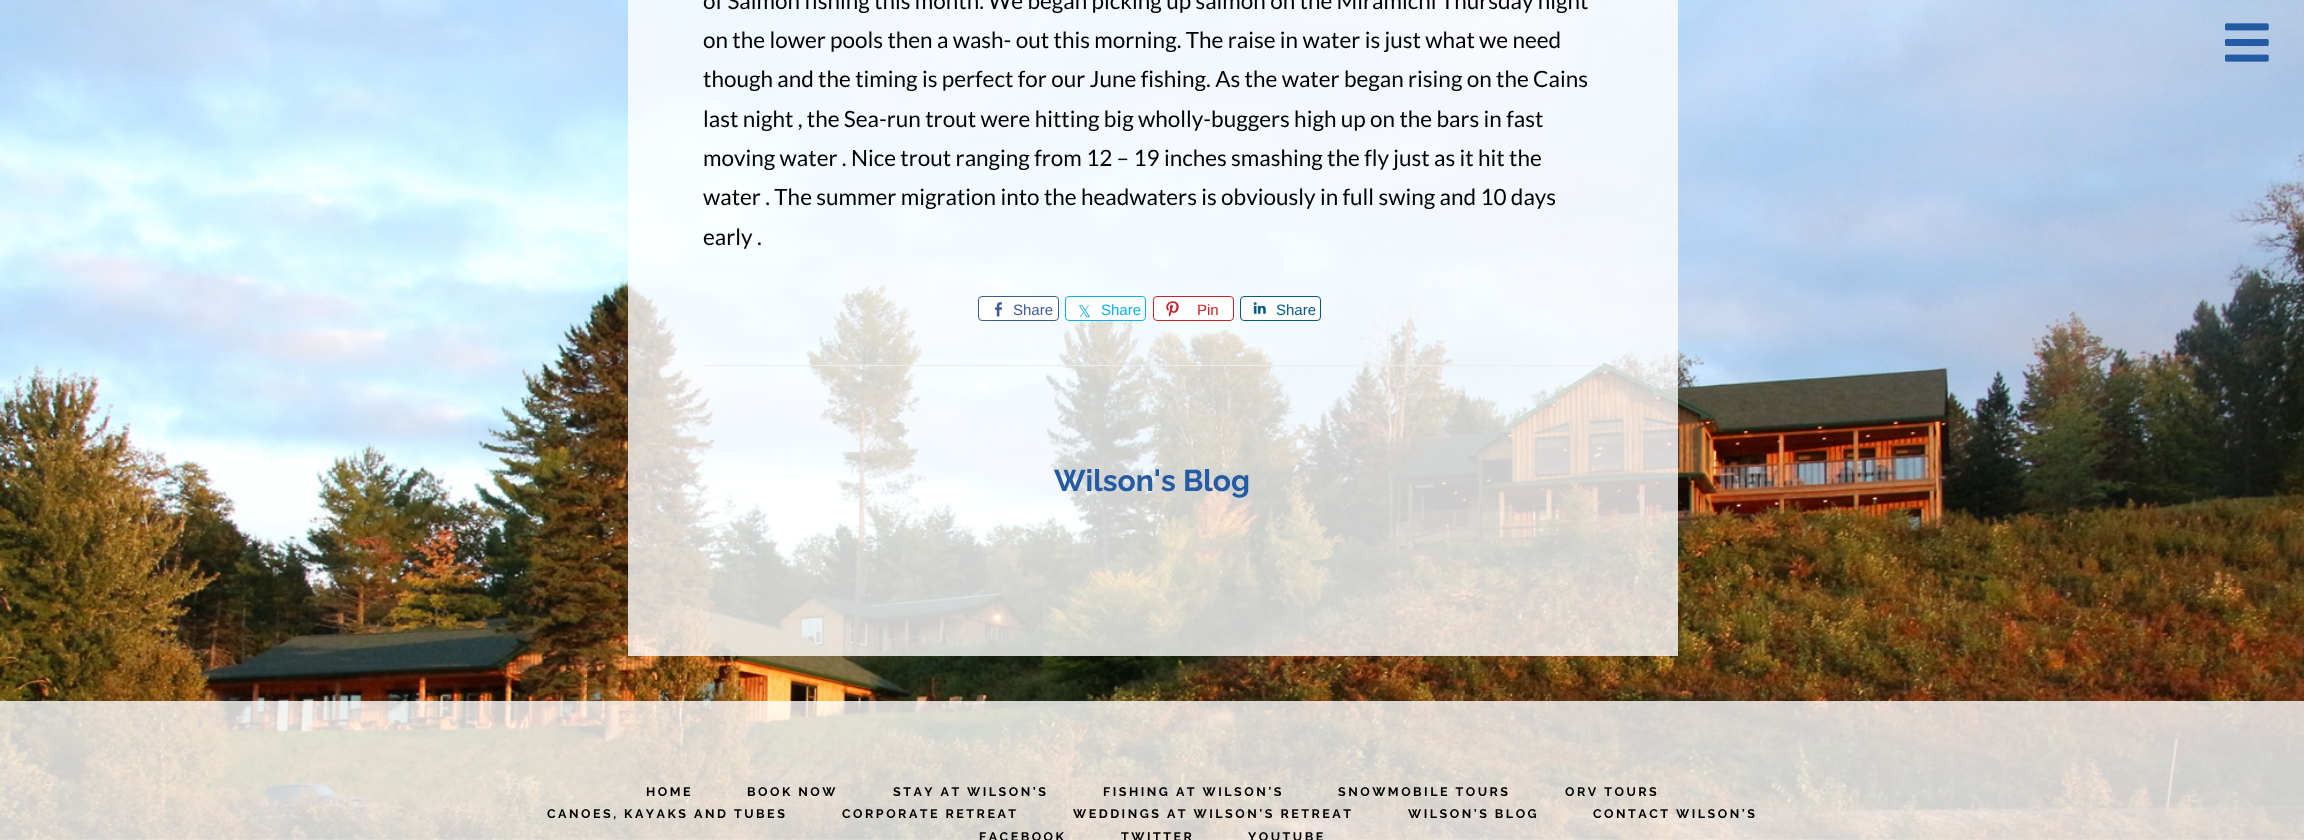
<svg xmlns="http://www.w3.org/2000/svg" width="2304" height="840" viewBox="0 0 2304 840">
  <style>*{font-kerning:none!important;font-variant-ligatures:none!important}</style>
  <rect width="100%" height="100%" fill="#ffffff"/>
  <image x="0" y="0" width="2304" height="840" href="img1.png"/>
  <rect x="628" y="0" width="1050" height="656" fill="#ffffff" fill-opacity="0.8"/>
  <rect x="703" y="365" width="900" height="1" fill="#eeeeee"/>
  <text x="703" y="9" font-family="Lato" font-size="22.5" fill="#000000">of Salmon fishing this month. We began picking up salmon on the Miramichi Thursday night</text>
  <text x="703" y="48" font-family="Lato" font-size="22.5" fill="#000000">on the lower pools then a wash- out this morning. The raise in water is just what we need</text>
  <text x="703" y="87" font-family="Lato" font-size="22.5" fill="#000000">though and the timing is perfect for our June fishing. As the water began rising on the Cains</text>
  <text x="703" y="127" font-family="Lato" font-size="22.5" fill="#000000">last night , the Sea-run trout were hitting big wholly-buggers high up on the bars in fast</text>
  <text x="703" y="166" font-family="Lato" font-size="22.5" fill="#000000">moving water . Nice trout ranging from 12 – 19 inches smashing the fly just as it hit the</text>
  <text x="703" y="205" font-family="Lato" font-size="22.5" fill="#000000">water . The summer migration into the headwaters is obviously in full swing and 10 days</text>
  <text x="703" y="245" font-family="Lato" font-size="22.5" fill="#000000">early .</text>
  <rect x="978.5" y="296.5" width="80" height="24" rx="3.5" fill="#ffffff" stroke="#3d5a98"/>
  <image x="995" y="302" width="7" height="15" href="img2.png"/>
  <text x="1013" y="315" font-family="Liberation Sans" font-size="15" fill="#3d5a98">Share</text>
  <rect x="1065.5" y="296.5" width="80" height="24" rx="3.5" fill="#ffffff" stroke="#09b0ed"/>
  <text x="1078" y="317" font-family="DejaVu Sans" font-size="16" fill="#09b0ed">𝕏</text>
  <text x="1101" y="315" font-family="Liberation Sans" font-size="15" fill="#09b0ed">Share</text>
  <rect x="1153.5" y="296.5" width="80" height="24" rx="3.5" fill="#ffffff" stroke="#cb2127"/>
  <image x="1166" y="301" width="13" height="16" href="img3.png"/>
  <text x="1197" y="315" font-family="Liberation Sans" font-size="15" fill="#cb2127">Pin</text>
  <rect x="1240.5" y="296.5" width="80" height="24" rx="3.5" fill="#ffffff" stroke="#035a87"/>
  <image x="1253" y="302" width="13" height="12" href="img4.png"/>
  <text x="1276" y="315" font-family="Liberation Sans" font-size="15" fill="#035a87">Share</text>
  <text x="1054" y="491" font-family="Raleway" font-size="30" font-weight="100" fill="#245ba5">Wilson's Blog</text>
  <image x="2225" y="23" width="44" height="39" href="img5.png"/>
  <rect x="0" y="701" width="2304" height="139" fill="#ffffff" fill-opacity="0.8"/>
  <text x="646" y="796" font-family="Raleway" font-size="12.5" font-weight="100" letter-spacing="2.5" fill="#000000">HOME</text>
  <text x="747" y="796" font-family="Raleway" font-size="12.5" font-weight="100" letter-spacing="2.5" fill="#000000">BOOK NOW</text>
  <text x="893" y="796" font-family="Raleway" font-size="12.5" font-weight="100" letter-spacing="2.5" fill="#000000">STAY AT</text>
  <text x="967" y="796" font-family="Raleway" font-size="12.5" font-weight="100" letter-spacing="2.5" fill="#000000">WILSON’S</text>
  <text x="1103" y="796" font-family="Raleway" font-size="12.5" font-weight="100" letter-spacing="2.5" fill="#000000">FISHING AT WILSON’S</text>
  <text x="1338" y="796" font-family="Raleway" font-size="12.5" font-weight="100" letter-spacing="2.5" fill="#000000">SNOWMOBILE TOURS</text>
  <text x="1565" y="796" font-family="Raleway" font-size="12.5" font-weight="100" letter-spacing="2.5" fill="#000000">ORV TOURS</text>
  <text x="547" y="818" font-family="Raleway" font-size="12.5" font-weight="100" letter-spacing="2.5" fill="#000000">CANOES, KAYAKS AND</text>
  <text x="734" y="818" font-family="Raleway" font-size="12.5" font-weight="100" letter-spacing="2.5" fill="#000000">TUBES</text>
  <text x="842" y="818" font-family="Raleway" font-size="12.5" font-weight="100" letter-spacing="2.5" fill="#000000">CORPORATE RETREAT</text>
  <text x="1073" y="818" font-family="Raleway" font-size="12.5" font-weight="100" letter-spacing="2.5" fill="#000000">WEDDINGS AT WILSON’S RETREAT</text>
  <text x="1408" y="818" font-family="Raleway" font-size="12.5" font-weight="100" letter-spacing="2.5" fill="#000000">WILSON’S BLOG</text>
  <text x="1593" y="818" font-family="Raleway" font-size="12.5" font-weight="100" letter-spacing="2.5" fill="#000000">CONTACT WILSON’S</text>
  <text x="979" y="841" font-family="Raleway" font-size="12.5" font-weight="100" letter-spacing="2.5" fill="#000000">FACEBOOK</text>
  <text x="1121" y="841" font-family="Raleway" font-size="12.5" font-weight="100" letter-spacing="2.5" fill="#000000">TWITTER</text>
  <text x="1248" y="841" font-family="Raleway" font-size="12.5" font-weight="100" letter-spacing="2.5" fill="#000000">YOUTUBE</text>
</svg>
